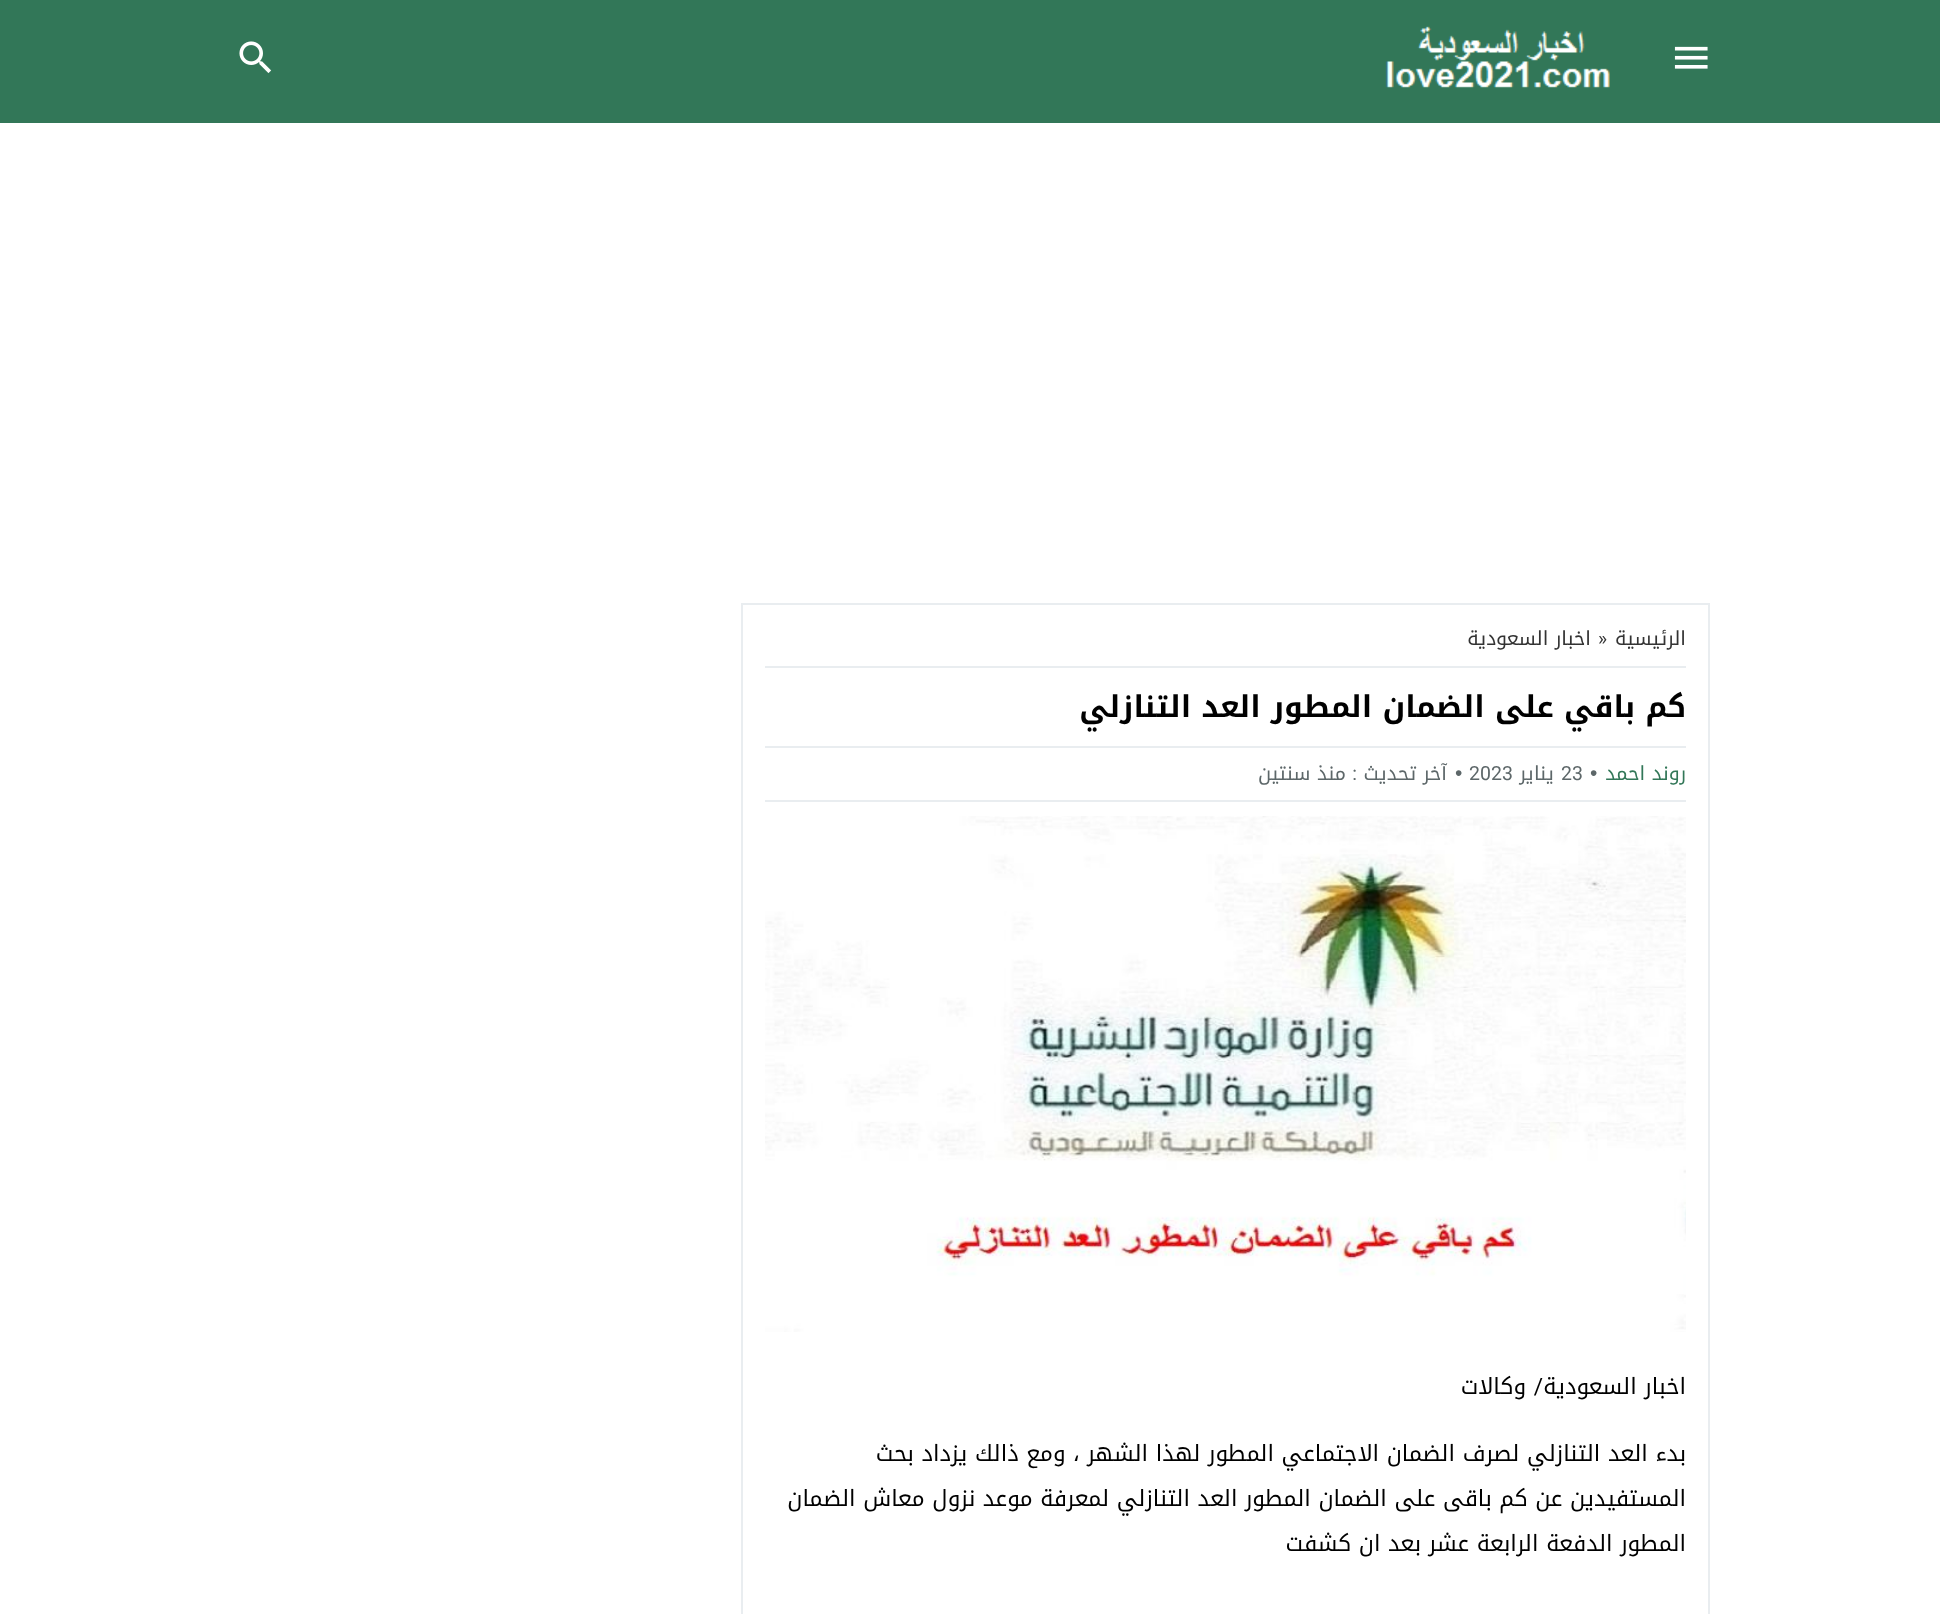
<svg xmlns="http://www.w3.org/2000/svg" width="1940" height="1614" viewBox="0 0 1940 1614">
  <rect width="100%" height="100%" fill="#ffffff"/>
  <rect x="0" y="0" width="1940" height="123" fill="#327758"/>
  <image x="1674" y="46" width="34" height="23" href="img1.png"/>
  <image x="1385" y="26" width="225" height="62" href="img2.png"/>
  <image x="239" y="41" width="33" height="33" href="img3.png"/>
  <rect x="742" y="604" width="967" height="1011" fill="none" stroke="#e9edf0" stroke-width="2"/>
  <rect x="765" y="666" width="921" height="2" fill="#e9edf0"/>
  <text x="1686" y="645" font-family="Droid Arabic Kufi" font-size="19.5" direction="rtl" fill="#333333">الرئيسية</text>
  <text x="1598" y="645" font-family="Roboto" font-size="19.5" fill="#333333">»</text>
  <text x="1591" y="645" font-family="Droid Arabic Kufi" font-size="19.5" direction="rtl" fill="#333333">اخبار السعودية</text>
  <text x="1686" y="717" font-family="Droid Arabic Kufi" font-size="30" font-weight="bold" direction="rtl" fill="#000000">كم باقي على الضمان المطور العد التنازلي</text>
  <rect x="765" y="746" width="921" height="2" fill="#e9edf0"/>
  <rect x="765" y="800" width="921" height="2" fill="#e9edf0"/>
  <text x="1686" y="780" font-family="Droid Arabic Kufi" font-size="19.5" direction="rtl" fill="#327758">روند احمد</text>
  <text x="1590" y="780" font-family="Liberation Sans" font-size="21" fill="#5d6769">•</text>
  <text x="1561" y="780" font-family="Roboto" font-size="19.5" fill="#5d6769">23</text>
  <text x="1554" y="780" font-family="Droid Arabic Kufi" font-size="19.5" direction="rtl" fill="#5d6769">يناير</text>
  <text x="1469" y="780" font-family="Roboto" font-size="19.5" fill="#5d6769">2023</text>
  <text x="1455" y="780" font-family="Liberation Sans" font-size="21" fill="#5d6769">•</text>
  <text x="1447" y="780" font-family="Droid Arabic Kufi" font-size="19.5" direction="rtl" fill="#5d6769">آخر تحديث</text>
  <text x="1357" y="780" font-family="Roboto" font-size="19.5" direction="rtl" fill="#5d6769">:</text>
  <text x="1346" y="780" font-family="Droid Arabic Kufi" font-size="19.5" direction="rtl" fill="#5d6769">منذ سنتين</text>
  <image x="765" y="816" width="921" height="516" href="img4.png"/>
  <text x="1686" y="1394" font-family="Droid Arabic Kufi" font-size="22.5" direction="rtl" fill="#000000">اخبار السعودية</text>
  <text x="1543" y="1394" font-family="Roboto" font-size="22.5" direction="rtl" fill="#000000">/</text>
  <text x="1526" y="1394" font-family="Droid Arabic Kufi" font-size="22.5" direction="rtl" fill="#000000">وكالات</text>
  <text x="1686" y="1461" font-family="Droid Arabic Kufi" font-size="22.5" direction="rtl" fill="#000000">بدء العد التنازلي لصرف الضمان الاجتماعي المطور لهذا الشهر ، ومع ذالك يزداد بحث</text>
  <text x="1686" y="1506" font-family="Droid Arabic Kufi" font-size="22.5" direction="rtl" fill="#000000">المستفيدين عن كم باقى على الضمان المطور العد التنازلي لمعرفة موعد نزول معاش الضمان</text>
  <text x="1686" y="1551" font-family="Droid Arabic Kufi" font-size="22.5" direction="rtl" fill="#000000">المطور الدفعة الرابعة عشر بعد ان كشفت</text>
</svg>
